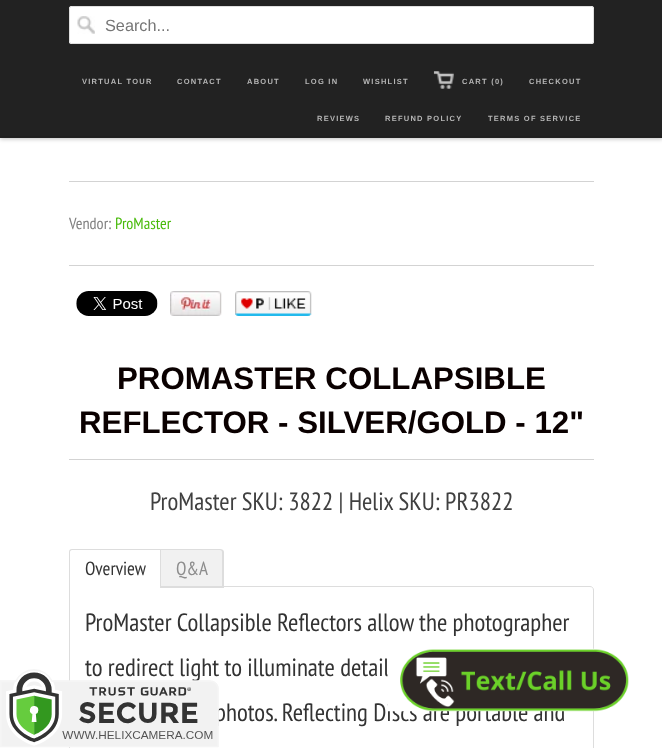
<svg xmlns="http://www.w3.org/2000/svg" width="662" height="748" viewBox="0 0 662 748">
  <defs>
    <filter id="blur1" x="-50%" y="-200%" width="200%" height="500%"><feGaussianBlur stdDeviation="2"/></filter>
  </defs>
  <rect width="100%" height="100%" fill="#ffffff"/>
  <rect x="0" y="1" width="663" height="138" fill="#000000" fill-opacity="0.25" filter="url(#blur1)"/>
  <rect x="0" y="0" width="662" height="138" fill="#222222"/>
  <rect x="0" y="136" width="662" height="1" fill="#1f1f1f"/>
  <rect x="69" y="6" width="525" height="38" rx="2.5" fill="#ffffff"/>
  <image x="77" y="16" width="18" height="18" href="img1.png"/>
  <rect x="69.5" y="6.5" width="524" height="37" rx="2" fill="none" stroke="#dfdfdf"/>
  <text x="105" y="31" font-family="Liberation Sans" font-size="16.25" fill="#757575">Search...</text>
  <text x="82" y="84" font-family="Liberation Sans" font-size="7.5" font-weight="bold" letter-spacing="1.25" fill="#b6b6b6">VIRTUAL TOUR</text>
  <text x="177" y="84" font-family="Liberation Sans" font-size="7.5" font-weight="bold" letter-spacing="1.25" fill="#b6b6b6">CONTACT</text>
  <text x="247" y="84" font-family="Liberation Sans" font-size="7.5" font-weight="bold" letter-spacing="1.25" fill="#b6b6b6">ABOUT</text>
  <text x="305" y="84" font-family="Liberation Sans" font-size="7.5" font-weight="bold" letter-spacing="1.25" fill="#b6b6b6">LOG IN</text>
  <text x="363" y="84" font-family="Liberation Sans" font-size="7.5" font-weight="bold" letter-spacing="1.25" fill="#b6b6b6">WISHLIST</text>
  <image x="433" y="71" width="21" height="18" href="img2.png"/>
  <text x="462" y="84" font-family="Liberation Sans" font-size="7.5" font-weight="bold" letter-spacing="1.25" fill="#b6b6b6">CART (0)</text>
  <text x="529" y="84" font-family="Liberation Sans" font-size="7.5" font-weight="bold" letter-spacing="1.25" fill="#b6b6b6">CHECKOUT</text>
  <text x="317" y="121" font-family="Liberation Sans" font-size="7.5" font-weight="bold" letter-spacing="1.25" fill="#b6b6b6">REVIEWS</text>
  <text x="385" y="121" font-family="Liberation Sans" font-size="7.5" font-weight="bold" letter-spacing="1.25" fill="#b6b6b6">REFUND POLICY</text>
  <text x="488" y="121" font-family="Liberation Sans" font-size="7.5" font-weight="bold" letter-spacing="1.25" fill="#b6b6b6">TERMS OF SERVICE</text>
  <rect x="69" y="181" width="525" height="1" fill="#d3d3d3"/>
  <text x="69" y="229" font-family="PT Sans Narrow" font-size="16.25" fill="#808080">Vendor:</text>
  <text x="115" y="229" font-family="PT Sans Narrow" font-size="16.25" fill="#49bb0c">ProMaster</text>
  <rect x="69" y="265" width="525" height="1" fill="#d3d3d3"/>
  <image x="76" y="291" width="82" height="25" href="img3.png"/>
  <image x="170" y="291" width="52" height="25" href="img4.png"/>
  <image x="235" y="291" width="77" height="25" href="img5.png"/>
  <rect x="69" y="459" width="525" height="1" fill="#d3d3d3"/>
  <text x="117" y="389" font-family="Liberation Sans" font-size="31.25" font-weight="bold" fill="#0a0000">PROMASTER COLLAPSIBLE</text>
  <text x="79" y="433" font-family="Liberation Sans" font-size="31.25" font-weight="bold" fill="#0a0000">REFLECTOR - SILVER/GOLD - 12"</text>
  <text x="150" y="510" font-family="PT Sans Narrow" font-size="25" fill="#404040">ProMaster SKU: 3822 | Helix SKU: PR3822</text>
  <path d="M69.5 586.5H590C592 586.5 593.5 588 593.5 590V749C593.5 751 592 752.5 590 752.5H73C71 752.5 69.5 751 69.5 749Z" fill="none" stroke="#dddddd"/>
  <path d="M72.5 550H160V588H70V552.5C70 551 71 550 72.5 550Z" fill="#ffffff"/>
  <path d="M72 549H161V588H69V552C69 550 70 549 72 549ZM72 550H160V588H70V552C70 551 71 550 72 550Z" fill="#dddddd" fill-rule="evenodd"/>
  <text x="85" y="575" font-family="PT Sans Narrow" font-size="19" fill="#333333">Overview</text>
  <path d="M161 550H220.5C222 550 223 551 223 552.5V586H161Z" fill="#f1f1f1"/>
  <path d="M161 549H220C222 549 224 550 224 552V588H161ZM161 550H220C221 550 222 551 222 552V586H161Z" fill="#dddddd" fill-rule="evenodd"/>
  <text x="176" y="575" font-family="PT Sans Narrow" font-size="19" fill="#8d8d8d">Q&amp;A</text>
  <text x="85" y="631" font-family="PT Sans Narrow" font-size="25" fill="#333333">ProMaster Collapsible Reflectors allow the photographer</text>
  <text x="85" y="676" font-family="PT Sans Narrow" font-size="25" fill="#333333">to redirect light to illuminate detail</text>
  <text x="215" y="721" font-family="PT Sans Narrow" font-size="25" fill="#333333">photos. Reflecting Discs are portable and</text>
  <image x="0" y="669" width="219" height="79" href="img6.png"/>
  <image x="387" y="648" width="242" height="64" href="img7.png"/>
</svg>
